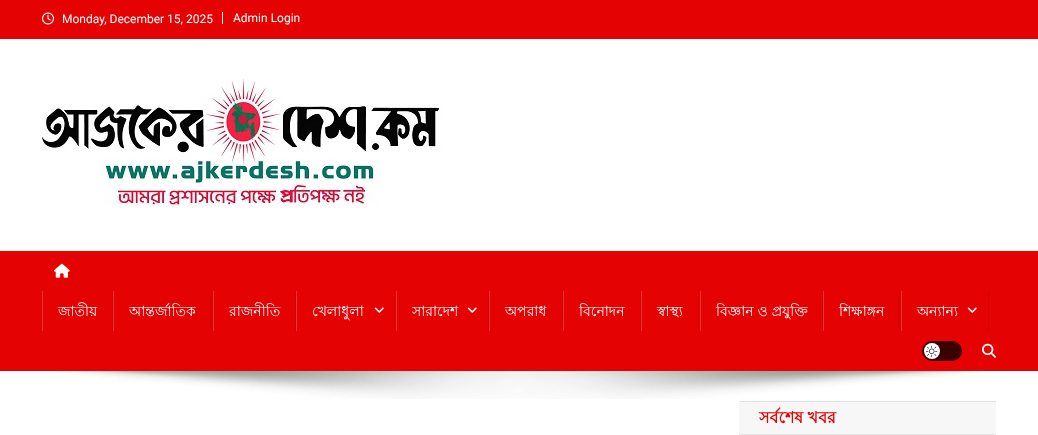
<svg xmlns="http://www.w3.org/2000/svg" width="1038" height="435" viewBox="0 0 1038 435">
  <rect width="100%" height="100%" fill="#ffffff"/>
  <rect x="0" y="0" width="1038" height="39" fill="#e50202"/>
  <image x="42" y="12" width="12" height="13" href="img1.png"/>
  <text x="62" y="23" font-family="Roboto" font-size="12" fill="#ffffff">Monday, December 15, 2025</text>
  <rect x="222" y="12" width="1" height="12" fill="#ffffff"/>
  <text x="233" y="22" font-family="Roboto" font-size="12" fill="#ffffff">Admin Login</text>
  <image x="42" y="79" width="400" height="127" href="img2.png"/>
  <rect x="0" y="251" width="1038" height="120" fill="#e50202"/>
  <image x="54" y="263" width="16" height="15" href="img3.png"/>
  <rect x="112" y="291" width="1" height="40" fill="#d30202"/>
  <rect x="42" y="291" width="1" height="40" fill="#ea3535"/>
  <text x="58" y="316" font-family="Lohit Bengali" font-size="14" fill="#ffffff">জাতীয়</text>
  <rect x="211" y="291" width="1" height="40" fill="#d30202"/>
  <rect x="113" y="291" width="1" height="40" fill="#ea3535"/>
  <text x="129" y="316" font-family="Lohit Bengali" font-size="14" fill="#ffffff">আন্তর্জাতিক</text>
  <rect x="295" y="291" width="1" height="40" fill="#d30202"/>
  <rect x="213" y="291" width="1" height="40" fill="#ea3535"/>
  <text x="229" y="316" font-family="Lohit Bengali" font-size="14" fill="#ffffff">রাজনীতি</text>
  <rect x="394" y="291" width="1" height="40" fill="#d30202"/>
  <rect x="296" y="291" width="1" height="40" fill="#ea3535"/>
  <text x="312" y="316" font-family="Lohit Bengali" font-size="14" fill="#ffffff">খেলাধুলা</text>
  <image x="374" y="307" width="10" height="6" href="img4.png"/>
  <rect x="488" y="291" width="1" height="40" fill="#d30202"/>
  <rect x="396" y="291" width="1" height="40" fill="#ea3535"/>
  <text x="412" y="316" font-family="Lohit Bengali" font-size="14" fill="#ffffff">সারাদেশ</text>
  <image x="467" y="307" width="10" height="6" href="img4.png"/>
  <rect x="562" y="291" width="1" height="40" fill="#d30202"/>
  <rect x="489" y="291" width="1" height="40" fill="#ea3535"/>
  <text x="505" y="316" font-family="Lohit Bengali" font-size="14" fill="#ffffff">অপরাধ</text>
  <rect x="640" y="291" width="1" height="40" fill="#d30202"/>
  <rect x="563" y="291" width="1" height="40" fill="#ea3535"/>
  <text x="579" y="316" font-family="Lohit Bengali" font-size="14" fill="#ffffff">বিনোদন</text>
  <rect x="698" y="291" width="1" height="40" fill="#d30202"/>
  <rect x="641" y="291" width="1" height="40" fill="#ea3535"/>
  <text x="657" y="316" font-family="Lohit Bengali" font-size="14" fill="#ffffff">স্বাস্থ্য</text>
  <rect x="822" y="291" width="1" height="40" fill="#d30202"/>
  <rect x="700" y="291" width="1" height="40" fill="#ea3535"/>
  <text x="716" y="316" font-family="Lohit Bengali" font-size="14" fill="#ffffff">বিজ্ঞান ও প্রযুক্তি</text>
  <rect x="899" y="291" width="1" height="40" fill="#d30202"/>
  <rect x="823" y="291" width="1" height="40" fill="#ea3535"/>
  <text x="839" y="316" font-family="Lohit Bengali" font-size="14" fill="#ffffff">শিক্ষাঙ্গন</text>
  <rect x="988" y="291" width="1" height="40" fill="#d30202"/>
  <rect x="901" y="291" width="1" height="40" fill="#ea3535"/>
  <text x="917" y="316" font-family="Lohit Bengali" font-size="14" fill="#ffffff">অন্যান্য</text>
  <image x="967" y="307" width="10" height="6" href="img4.png"/>
  <rect x="922" y="341" width="40" height="20" rx="10" fill="#390101"/>
  <circle cx="932" cy="351" r="8" fill="#ffffff"/>
  <image x="926" y="345" width="12" height="12" href="img5.png"/>
  <image x="982" y="343" width="14" height="15" href="img6.png"/>
  <image x="56" y="371" width="925" height="28" href="img7.png"/>
  <rect x="739" y="402" width="257" height="32" fill="#f7f7f7"/>
  <rect x="739" y="401" width="257" height="1" fill="#e1e1e1"/>
  <rect x="739" y="434" width="257" height="1" fill="#e1e1e1"/>
  <text x="759" y="423" font-family="Lohit Bengali" font-size="16" font-weight="bold" fill="#e50202">সর্বশেষ খবর</text>
</svg>
